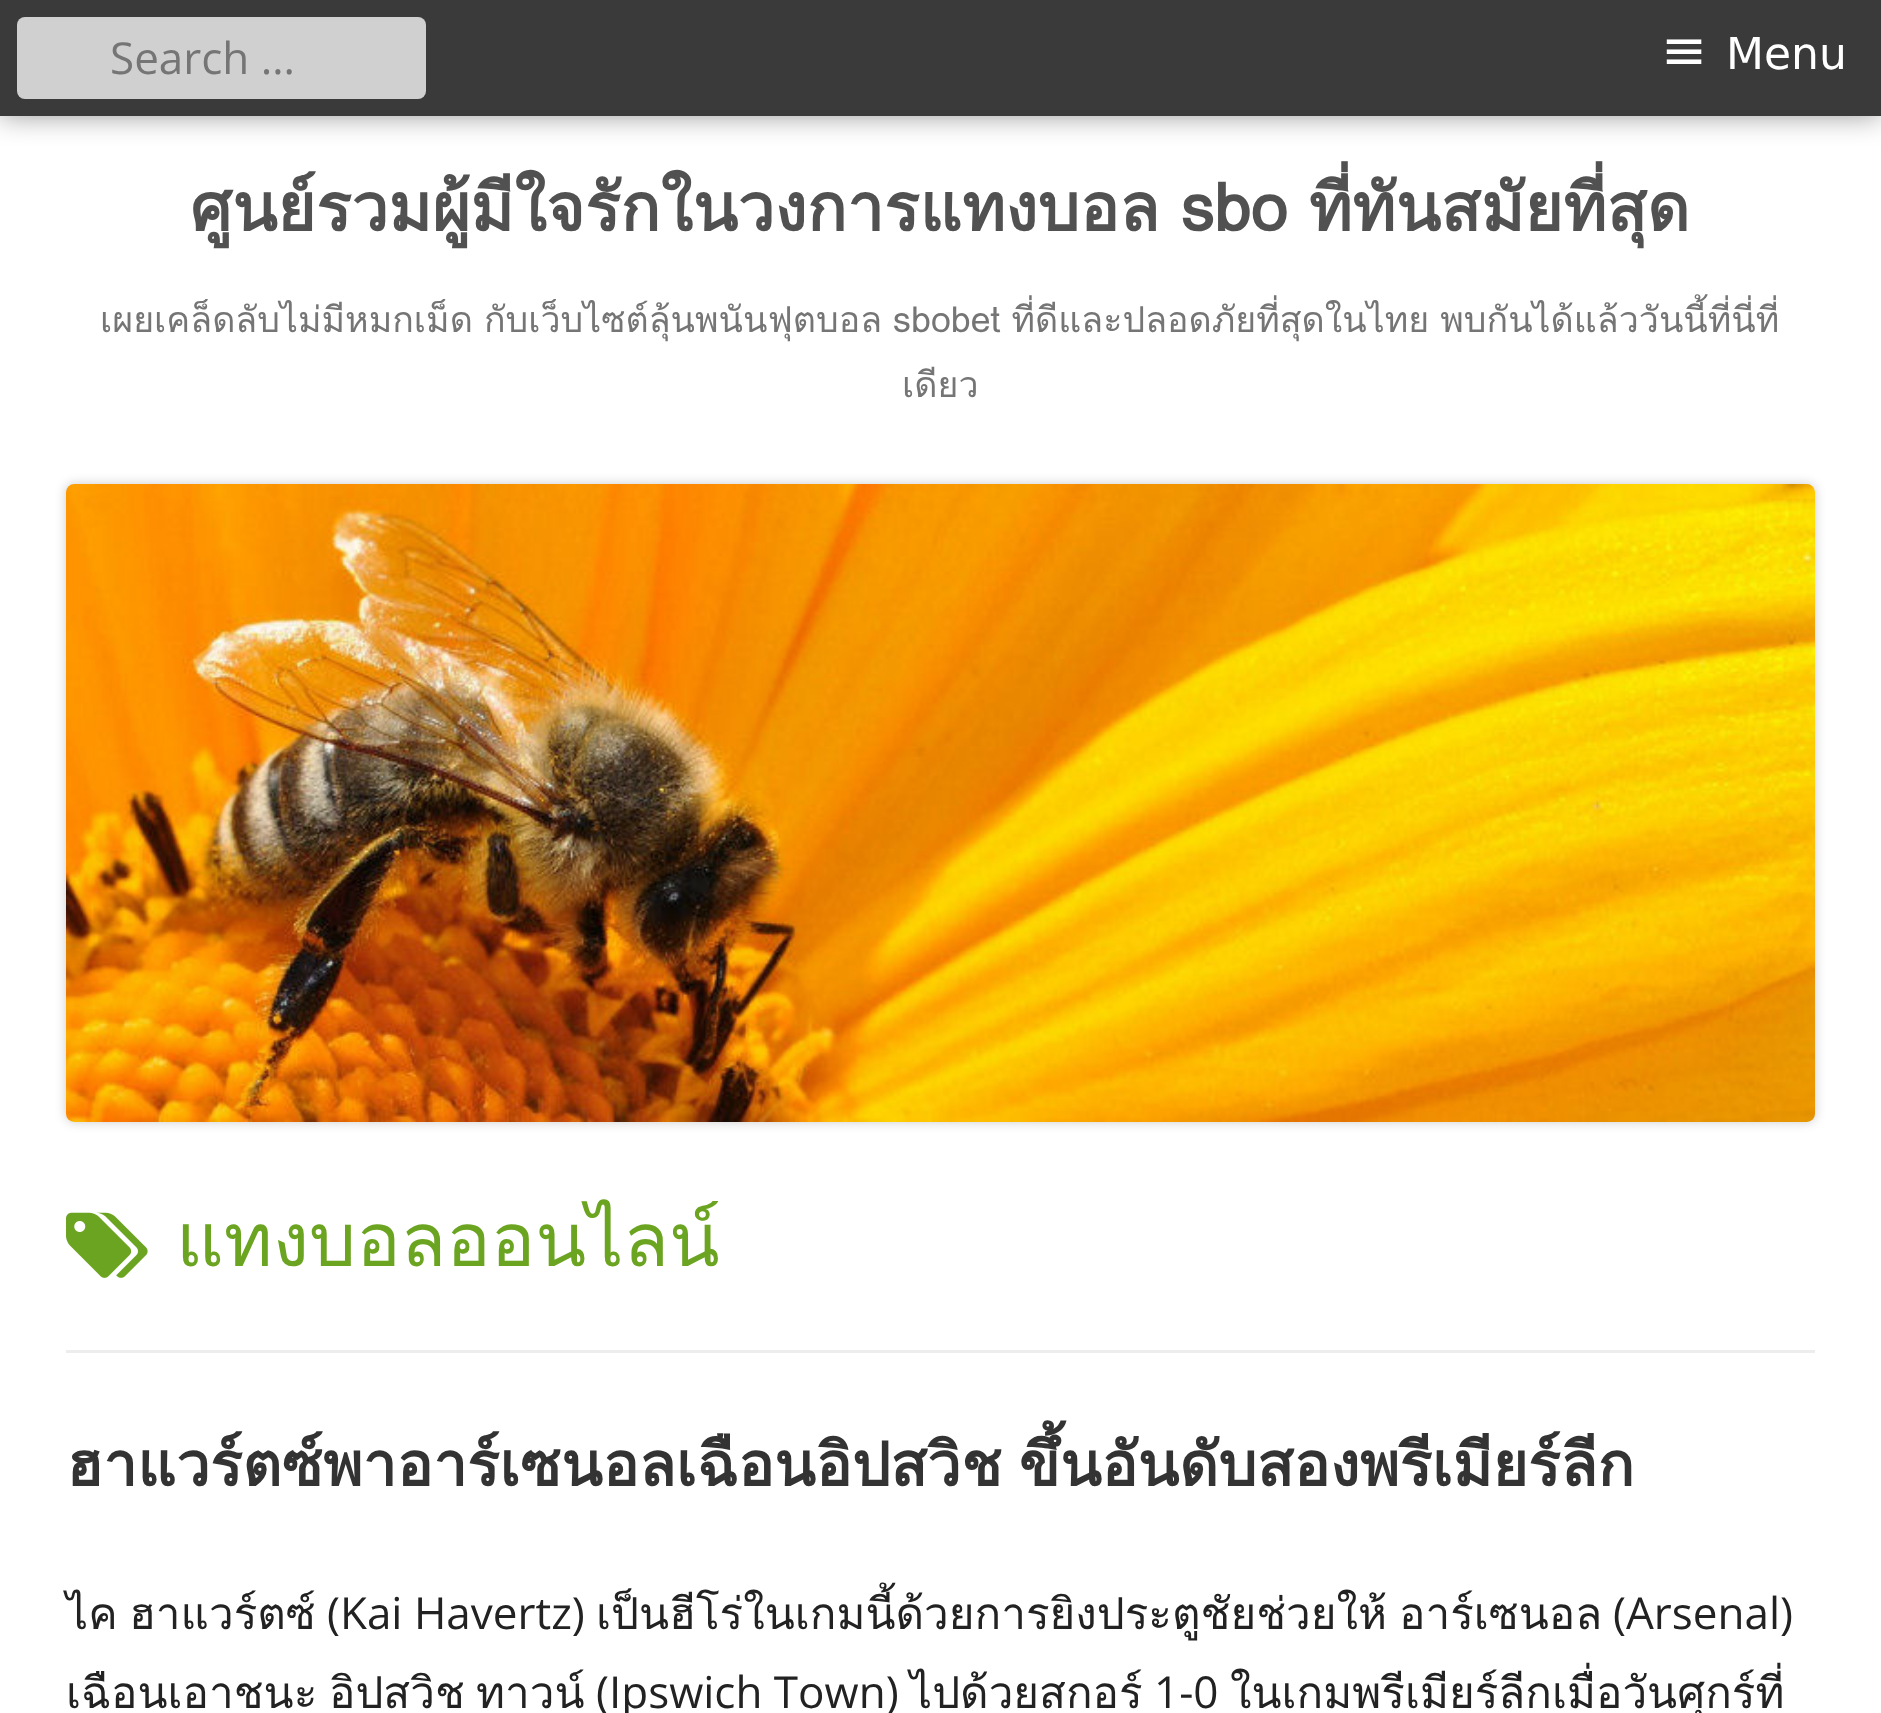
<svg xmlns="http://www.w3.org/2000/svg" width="1881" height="1713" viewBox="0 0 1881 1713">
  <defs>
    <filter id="blur1" x="-50%" y="-200%" width="200%" height="500%"><feGaussianBlur stdDeviation="14"/></filter>
    <filter id="blur2" x="-50%" y="-200%" width="200%" height="500%"><feGaussianBlur stdDeviation="5.5"/></filter>
  </defs>
  <rect width="100%" height="100%" fill="#ffffff"/>
  <rect x="0" y="0" width="1881" height="116" fill="#000000" fill-opacity="0.4" filter="url(#blur1)"/>
  <rect x="0" y="0" width="1881" height="116" fill="#3a3a3a"/>
  <rect x="17" y="17" width="409" height="82" rx="8" fill="#d0d0d0"/>
  <text x="110" y="74" font-family="Open Sans" font-size="44" fill="#757575">Search …</text>
  <text x="1661" y="69" font-family="DejaVu Sans" font-size="55" fill="#ffffff">≡</text>
  <text x="1726" y="69" font-family="DejaVu Sans" font-size="44" fill="#ffffff">Menu</text>
  <text x="190" y="231" word-spacing="-1" font-family="Loma" font-size="66" font-weight="bold" fill="#515151">ศูนย์รวมผู้มีใจรักในวงการแทงบอล sbo ที่ทันสมัยที่สุด</text>
  <text x="100" y="332" word-spacing="-1" font-family="Loma" font-size="35.75" fill="#757575">เผยเคล็ดลับไม่มีหมกเม็ด กับเว็บไซต์ลุ้นพนันฟุตบอล sbobet ที่ดีและปลอดภัยที่สุดในไทย พบกันได้แล้ววันนี้ที่นี่ที่</text>
  <text x="902" y="397" font-family="Loma" font-size="35.75" fill="#757575">เดียว</text>
  <rect x="66" y="484" width="1749" height="638" rx="8" fill="#000000" fill-opacity="0.2" filter="url(#blur2)"/>
  <image x="66" y="484" width="1749" height="638" href="img1.png"/>
  <rect x="66" y="1350" width="1749" height="3" fill="#ededed"/>
  <image x="66" y="1212" width="82" height="66" href="img2.png"/>
  <text x="176" y="1266" font-family="Loma" font-size="74.25" fill="#6ba420">แทงบอลออนไลน์</text>
  <text x="66" y="1486" word-spacing="-4" font-family="Loma" font-size="60.5" font-weight="bold" fill="#333333">ฮาแวร์ตซ์พาอาร์เซนอลเฉือนอิปสวิช ขึ้นอันดับสองพรีเมียร์ลีก</text>
  <text x="66" y="1629" font-family="Loma" font-size="44" fill="#222222">ไค</text>
  <text x="129" y="1629" font-family="Loma" font-size="44" fill="#222222">ฮาแวร์ตซ์</text>
  <text x="327" y="1629" font-family="Open Sans" font-size="44" fill="#222222">(Kai Havertz)</text>
  <text x="596" y="1629" font-family="Loma" font-size="44" fill="#222222">เป็นฮีโร่ในเกมนี้ด้วยการยิงประตูชัยช่วยให้</text>
  <text x="1399" y="1629" font-family="Loma" font-size="44" fill="#222222">อาร์เซนอล</text>
  <text x="1613" y="1629" font-family="Open Sans" font-size="44" fill="#222222">(Arsenal)</text>
  <text x="66" y="1708" font-family="Loma" font-size="44" fill="#222222">เฉือนเอาชนะ</text>
  <text x="329" y="1708" font-family="Loma" font-size="44" fill="#222222">อิปสวิช</text>
  <text x="476" y="1708" font-family="Loma" font-size="44" fill="#222222">ทาวน์</text>
  <text x="596" y="1708" font-family="Open Sans" font-size="44" fill="#222222">(Ipswich Town)</text>
  <text x="910" y="1708" font-family="Loma" font-size="44" fill="#222222">ไปด้วยสกอร์</text>
  <text x="1154" y="1708" font-family="Open Sans" font-size="44" fill="#222222">1-0</text>
  <text x="1230" y="1708" font-family="Loma" font-size="44" fill="#222222">ในเกมพรีเมียร์ลีกเมื่อวันศุกร์ที่</text>
</svg>
